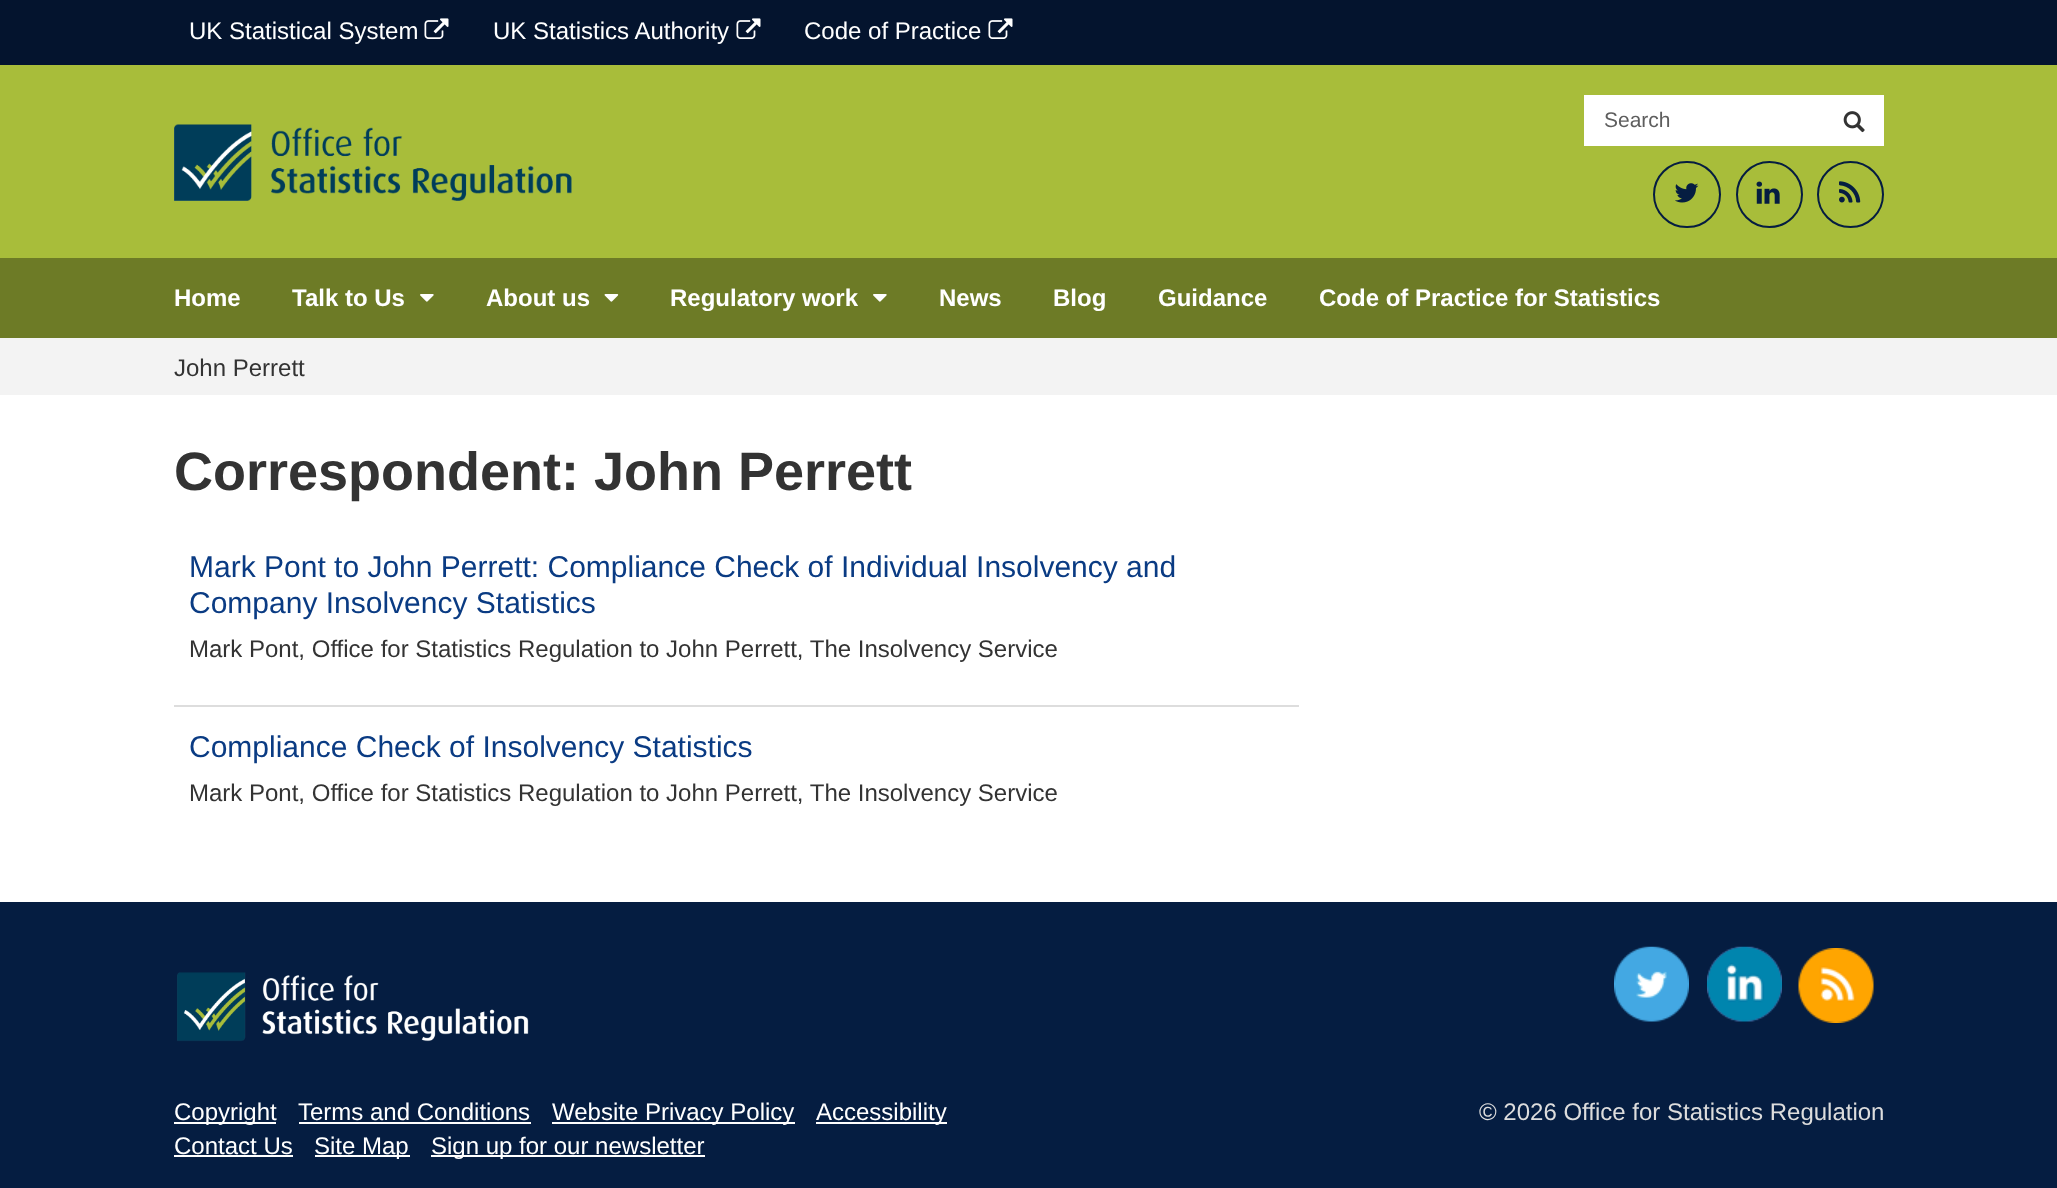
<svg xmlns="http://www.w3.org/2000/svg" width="2057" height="1188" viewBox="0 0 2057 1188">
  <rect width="100%" height="100%" fill="#051d41"/>
  <rect x="0" y="0" width="2057" height="65" fill="#04142e"/>
  <text x="189" y="39" font-family="Liberation Sans" font-size="24" fill="#ffffff">UK Statistical System</text>
  <image x="424" y="18" width="25" height="21" href="img1.png"/>
  <text x="493" y="39" font-family="Liberation Sans" font-size="24" fill="#ffffff">UK Statistics Authority</text>
  <image x="736" y="18" width="25" height="21" href="img1.png"/>
  <text x="804" y="39" font-family="Liberation Sans" font-size="24" fill="#ffffff">Code of Practice</text>
  <image x="988" y="18" width="25" height="21" href="img1.png"/>
  <rect x="0" y="65" width="2057" height="193" fill="#a8bd3a"/>
  <rect x="1584" y="95" width="300" height="51" fill="#ffffff"/>
  <text x="1604" y="127" font-family="Liberation Sans" font-size="21" fill="#5e5e5e">Search</text>
  <image x="1843" y="111" width="22" height="22" href="img2.png"/>
  <rect x="1654" y="162" width="66" height="65" rx="32.5" fill="none" stroke="#051d41" stroke-width="2"/>
  <image x="1675" y="183" width="24" height="20" href="img3.png"/>
  <circle cx="1769.5" cy="194.5" r="32.5" fill="none" stroke="#051d41" stroke-width="2"/>
  <image x="1756" y="181" width="24" height="23" href="img4.png"/>
  <circle cx="1850.5" cy="194.5" r="32.5" fill="none" stroke="#051d41" stroke-width="2"/>
  <image x="1839" y="181" width="22" height="22" href="img5.png"/>
  <image x="174" y="124" width="398" height="77" href="img6.png"/>
  <rect x="0" y="258" width="2057" height="80" fill="#6d7b26"/>
  <text x="174" y="306" font-family="Liberation Sans" font-size="24" font-weight="bold" fill="#ffffff">Home</text>
  <text x="292" y="306" font-family="Liberation Sans" font-size="24" font-weight="bold" fill="#ffffff">Talk to Us</text>
  <image x="420" y="294" width="14" height="8" href="img7.png"/>
  <text x="486" y="306" font-family="Liberation Sans" font-size="24" font-weight="bold" fill="#ffffff">About us</text>
  <image x="604" y="294" width="15" height="8" href="img8.png"/>
  <text x="670" y="306" font-family="Liberation Sans" font-size="24" font-weight="bold" fill="#ffffff">Regulatory work</text>
  <image x="873" y="294" width="14" height="8" href="img7.png"/>
  <text x="939" y="306" font-family="Liberation Sans" font-size="24" font-weight="bold" fill="#ffffff">News</text>
  <text x="1053" y="306" font-family="Liberation Sans" font-size="24" font-weight="bold" fill="#ffffff">Blog</text>
  <text x="1158" y="306" font-family="Liberation Sans" font-size="24" font-weight="bold" fill="#ffffff">Guidance</text>
  <text x="1319" y="306" font-family="Liberation Sans" font-size="24" font-weight="bold" fill="#ffffff">Code of Practice for Statistics</text>
  <rect x="0" y="395" width="2057" height="507" fill="#ffffff"/>
  <rect x="0" y="338" width="2057" height="57" fill="#f3f3f3"/>
  <text x="174" y="376" font-family="Liberation Sans" font-size="24" fill="#333333">John Perrett</text>
  <text x="174" y="490" font-family="Liberation Sans" font-size="54" font-weight="bold" fill="#333333">Correspondent: John Perrett</text>
  <text x="189" y="577" font-family="Liberation Sans" font-size="30" fill="#0a3b83">Mark Pont to John Perrett: Compliance Check of Individual Insolvency and</text>
  <text x="189" y="613" font-family="Liberation Sans" font-size="30" fill="#0a3b83">Company Insolvency Statistics</text>
  <text x="189" y="657" font-family="Liberation Sans" font-size="24" fill="#333333">Mark Pont, Office for Statistics Regulation to John Perrett, The Insolvency Service</text>
  <rect x="174" y="705" width="1125" height="2" fill="#dddddd"/>
  <text x="189" y="757" font-family="Liberation Sans" font-size="30" fill="#0a3b83">Compliance Check of Insolvency Statistics</text>
  <text x="189" y="801" font-family="Liberation Sans" font-size="24" fill="#333333">Mark Pont, Office for Statistics Regulation to John Perrett, The Insolvency Service</text>
  <image x="177" y="972" width="352" height="70" href="img9.png"/>
  <image x="1614" y="946" width="75" height="76" href="img10.png"/>
  <image x="1707" y="946" width="75" height="76" href="img11.png"/>
  <image x="1798" y="948" width="76" height="75" href="img12.png"/>
  <rect x="174" y="1122" width="102" height="2" fill="#ffffff"/>
  <text x="174" y="1120" font-family="Liberation Sans" font-size="24" fill="#ffffff">Copyright</text>
  <text x="298" y="1120" font-family="Liberation Sans" font-size="24" fill="#ffffff">Terms and Conditions</text>
  <rect x="299" y="1122" width="232" height="2" fill="#ffffff"/>
  <rect x="552" y="1122" width="243" height="2" fill="#ffffff"/>
  <text x="552" y="1120" font-family="Liberation Sans" font-size="24" fill="#ffffff">Website Privacy Policy</text>
  <rect x="816" y="1122" width="131" height="2" fill="#ffffff"/>
  <text x="816" y="1120" font-family="Liberation Sans" font-size="24" fill="#ffffff">Accessibility</text>
  <text x="174" y="1154" font-family="Liberation Sans" font-size="24" fill="#ffffff">Contact Us</text>
  <rect x="174" y="1155" width="119" height="2" fill="#ffffff"/>
  <rect x="315" y="1155" width="95" height="2" fill="#ffffff"/>
  <text x="314" y="1154" font-family="Liberation Sans" font-size="24" fill="#ffffff">Site Map</text>
  <rect x="431" y="1155" width="274" height="2" fill="#ffffff"/>
  <text x="431" y="1154" font-family="Liberation Sans" font-size="24" fill="#ffffff">Sign up for our newsletter</text>
  <text x="1479" y="1120" font-family="Liberation Sans" font-size="24" fill="#dddddd">© 2026 Office for Statistics Regulation</text>
</svg>
